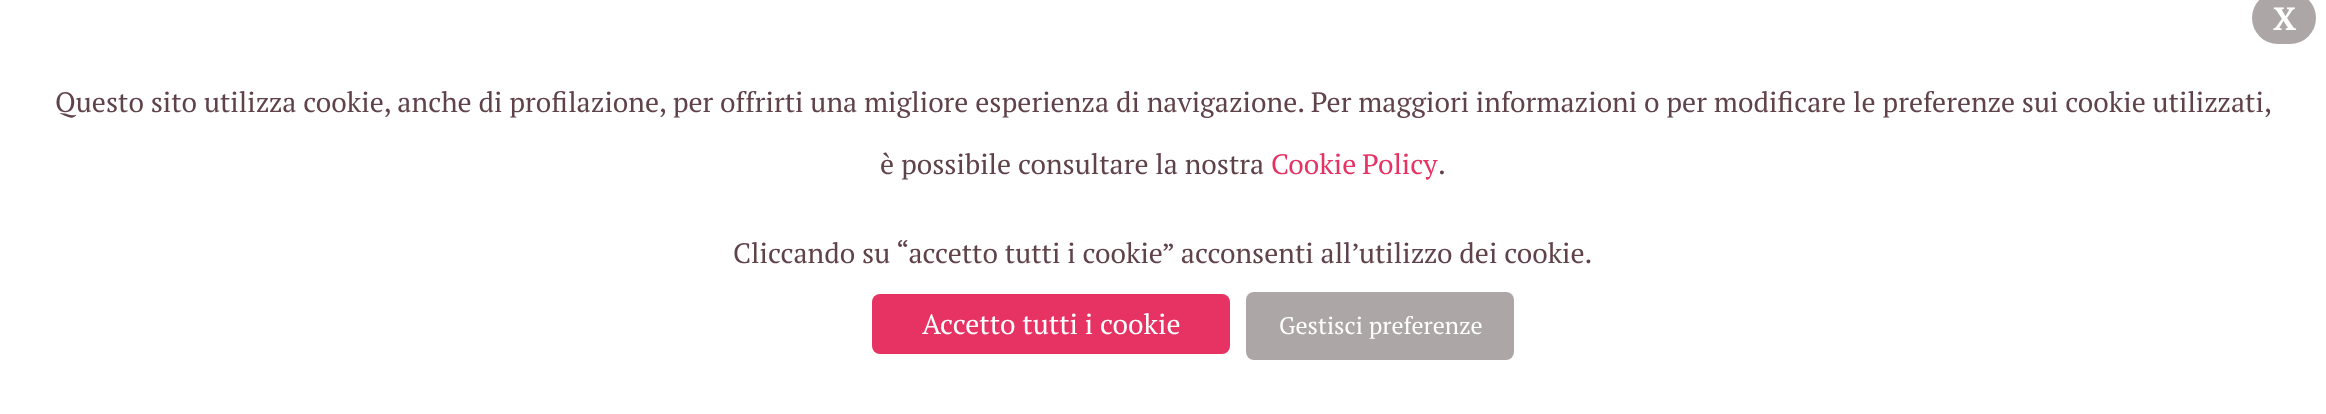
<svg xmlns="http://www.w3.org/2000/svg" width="2326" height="414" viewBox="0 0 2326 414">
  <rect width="100%" height="100%" fill="#ffffff"/>
  <rect x="2252" y="-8" width="64" height="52" rx="26" fill="#ada6a6"/>
  <text x="2273" y="30" font-family="PT Serif" font-size="32" font-weight="bold" fill="#ffffff">X</text>
  <text x="55" y="112" font-family="PT Serif" font-size="28" fill="#60424a">Questo sito utilizza cookie, anche di profilazione, per offrirti una migliore esperienza di navigazione. Per maggiori informazioni o per modificare le preferenze sui cookie utilizzati,</text>
  <text x="880" y="174" font-family="PT Serif" font-size="28" fill="#60424a">è possibile consultare la nostra</text>
  <text x="1271" y="174" word-spacing="-1" font-family="PT Serif" font-size="28" fill="#e63363">Cookie Policy</text>
  <text x="1438" y="174" font-family="PT Serif" font-size="28" fill="#60424a">.</text>
  <text x="733" y="263" font-family="PT Serif" font-size="28" fill="#60424a">Cliccando su “accetto tutti i cookie” acconsenti all’utilizzo dei cookie.</text>
  <rect x="872" y="294" width="358" height="60" rx="8" fill="#e63363"/>
  <text x="922" y="334" font-family="PT Serif" font-size="28" fill="#ffffff">Accetto tutti i cookie</text>
  <rect x="1246" y="292" width="268" height="68" rx="8" fill="#ada6a6"/>
  <text x="1279" y="334" font-family="PT Serif" font-size="24" fill="#ffffff">Gestisci preferenze</text>
</svg>
